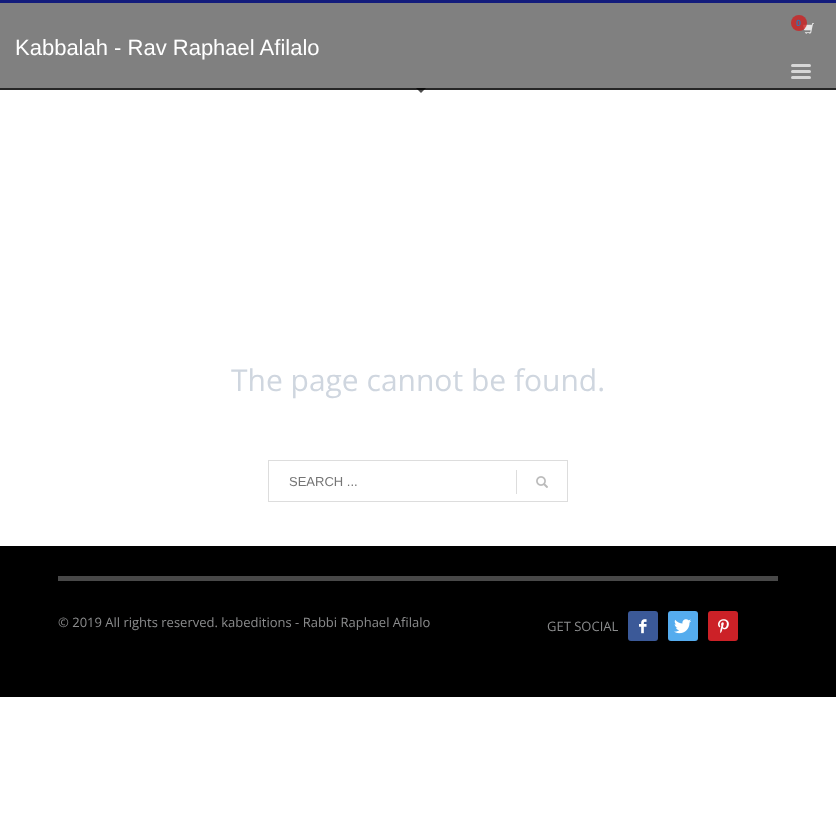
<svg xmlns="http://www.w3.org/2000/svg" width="836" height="831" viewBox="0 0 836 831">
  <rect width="100%" height="100%" fill="#ffffff"/>
  <rect x="0" y="3" width="836" height="85" fill="#808080"/>
  <rect x="0" y="0" width="836" height="3" fill="#131c7c"/>
  <rect x="0" y="88" width="836" height="2" fill="#262626"/>
  <image x="803" y="23" width="11" height="11" href="img1.png"/>
  <circle cx="799" cy="23" r="8" fill="#cd2122" fill-opacity="0.8"/>
  <text x="796" y="26" font-family="Liberation Sans" font-size="9" font-weight="bold" fill="#3276b2">0</text>
  <rect x="791" y="64" width="20" height="3" rx="1.5" fill="#d7d7d7"/>
  <rect x="791" y="70" width="20" height="3" rx="1.5" fill="#d7d7d7"/>
  <rect x="791" y="76" width="20" height="3" rx="1.5" fill="#d7d7d7"/>
  <text x="15" y="55" font-family="Liberation Sans" font-size="22" fill="#ffffff">Kabbalah - Rav Raphael Afilalo</text>
  <path d="M416 88H426L421 93Z" fill="#000000" fill-opacity="0.7"/>
  <text x="231" y="391" font-family="Open Sans" font-size="30" fill="#cfd6df">The page cannot be found.</text>
  <rect x="268.5" y="460.5" width="299" height="41" fill="none" stroke="#dddddd"/>
  <text x="289" y="486" font-family="Liberation Sans" font-size="13" fill="#757575">SEARCH ...</text>
  <rect x="516" y="470" width="1" height="24" fill="#dddddd"/>
  <image x="536" y="476" width="12" height="12" href="img2.png"/>
  <rect x="0" y="546" width="836" height="151" fill="#000000"/>
  <rect x="58" y="576" width="720" height="5" fill="#484848"/>
  <text x="58" y="627" font-family="Open Sans" font-size="13" fill="#8b8c8d">© 2019 All rights reserved. kabeditions - Rabbi Raphael Afilalo</text>
  <text x="547" y="631" font-family="Open Sans" font-size="13" fill="#8b8c8d">GET SOCIAL</text>
  <rect x="628" y="611" width="30" height="30" rx="3" fill="#3b5998"/>
  <image x="639" y="619" width="8" height="15" href="img3.png"/>
  <rect x="668" y="611" width="30" height="30" rx="3" fill="#55acee"/>
  <image x="674" y="619" width="17" height="15" href="img4.png"/>
  <rect x="708" y="611" width="30" height="30" rx="3" fill="#cc2127"/>
  <image x="718" y="619" width="11" height="15" href="img5.png"/>
</svg>
